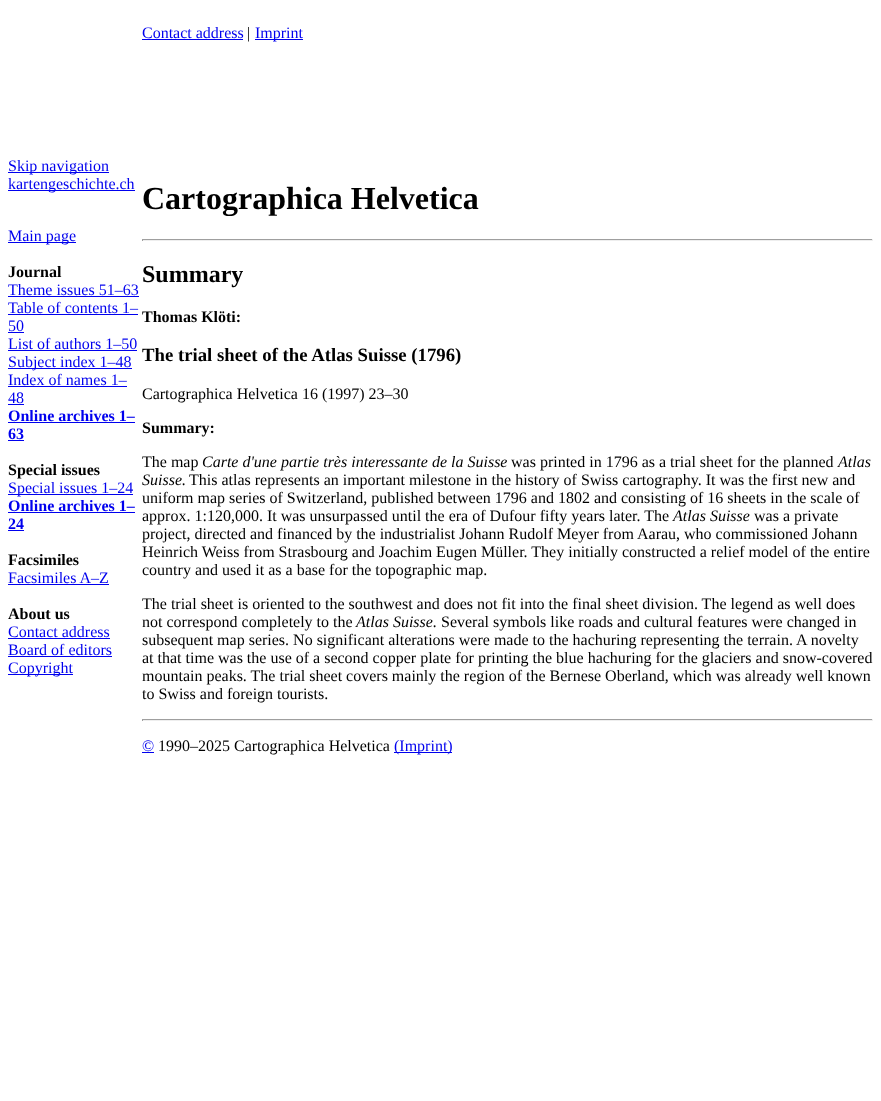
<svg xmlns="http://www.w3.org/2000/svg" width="881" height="1101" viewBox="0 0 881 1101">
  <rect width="100%" height="100%" fill="#ffffff"/>
  <rect x="8" y="172" width="101" height="1" fill="#0000ee"/>
  <text x="8" y="171" font-family="Liberation Serif" font-size="16" fill="#0000ee">Skip navigation</text>
  <rect x="8" y="190" width="127" height="1" fill="#0000ee"/>
  <text x="8" y="189" font-family="Liberation Serif" font-size="16" fill="#0000ee">kartengeschichte.ch</text>
  <rect x="8" y="242" width="68" height="1" fill="#0000ee"/>
  <text x="8" y="241" font-family="Liberation Serif" font-size="16" fill="#0000ee">Main page</text>
  <text x="8" y="277" font-family="Liberation Serif" font-size="16" font-weight="bold" fill="#000000">Journal</text>
  <text x="8" y="295" font-family="Liberation Serif" font-size="16" fill="#0000ee">Theme issues 51–63</text>
  <rect x="8" y="296" width="131" height="1" fill="#0000ee"/>
  <text x="8" y="313" font-family="Liberation Serif" font-size="16" fill="#0000ee">Table of contents 1–</text>
  <rect x="8" y="314" width="130" height="1" fill="#0000ee"/>
  <text x="8" y="331" font-family="Liberation Serif" font-size="16" fill="#0000ee">50</text>
  <rect x="8" y="332" width="16" height="1" fill="#0000ee"/>
  <text x="8" y="349" font-family="Liberation Serif" font-size="16" fill="#0000ee">List of authors 1–50</text>
  <rect x="8" y="350" width="129" height="1" fill="#0000ee"/>
  <rect x="8" y="368" width="124" height="1" fill="#0000ee"/>
  <text x="8" y="367" font-family="Liberation Serif" font-size="16" fill="#0000ee">Subject index 1–48</text>
  <text x="8" y="385" font-family="Liberation Serif" font-size="16" fill="#0000ee">Index of names 1–</text>
  <rect x="8" y="386" width="119" height="1" fill="#0000ee"/>
  <text x="8" y="403" font-family="Liberation Serif" font-size="16" fill="#0000ee">48</text>
  <rect x="8" y="404" width="16" height="1" fill="#0000ee"/>
  <text x="8" y="421" font-family="Liberation Serif" font-size="16" font-weight="bold" fill="#0000ee">Online archives 1–</text>
  <rect x="8" y="422" width="127" height="1" fill="#0000ee"/>
  <text x="8" y="439" font-family="Liberation Serif" font-size="16" font-weight="bold" fill="#0000ee">63</text>
  <rect x="8" y="440" width="16" height="1" fill="#0000ee"/>
  <text x="8" y="475" font-family="Liberation Serif" font-size="16" font-weight="bold" fill="#000000">Special issues</text>
  <rect x="8" y="494" width="125" height="1" fill="#0000ee"/>
  <text x="8" y="493" font-family="Liberation Serif" font-size="16" fill="#0000ee">Special issues 1–24</text>
  <text x="8" y="511" font-family="Liberation Serif" font-size="16" font-weight="bold" fill="#0000ee">Online archives 1–</text>
  <rect x="8" y="512" width="127" height="1" fill="#0000ee"/>
  <text x="8" y="529" font-family="Liberation Serif" font-size="16" font-weight="bold" fill="#0000ee">24</text>
  <rect x="8" y="530" width="16" height="1" fill="#0000ee"/>
  <text x="8" y="565" font-family="Liberation Serif" font-size="16" font-weight="bold" fill="#000000">Facsimiles</text>
  <text x="8" y="583" font-family="Liberation Serif" font-size="16" fill="#0000ee">Facsimiles A–Z</text>
  <rect x="8" y="584" width="101" height="1" fill="#0000ee"/>
  <text x="8" y="619" font-family="Liberation Serif" font-size="16" font-weight="bold" fill="#000000">About us</text>
  <text x="8" y="637" font-family="Liberation Serif" font-size="16" fill="#0000ee">Contact address</text>
  <rect x="8" y="638" width="102" height="1" fill="#0000ee"/>
  <text x="8" y="655" font-family="Liberation Serif" font-size="16" fill="#0000ee">Board of editors</text>
  <rect x="8" y="656" width="104" height="1" fill="#0000ee"/>
  <rect x="8" y="674" width="65" height="1" fill="#0000ee"/>
  <text x="8" y="673" font-family="Liberation Serif" font-size="16" fill="#0000ee">Copyright</text>
  <text x="142" y="38" font-family="Liberation Serif" font-size="16" fill="#0000ee">Contact address</text>
  <rect x="142" y="39" width="101" height="1" fill="#0000ee"/>
  <text x="247" y="38" font-family="Liberation Serif" font-size="16" fill="#000000">|</text>
  <rect x="255" y="39" width="48" height="1" fill="#0000ee"/>
  <text x="255" y="38" font-family="Liberation Serif" font-size="16" fill="#0000ee">Imprint</text>
  <text x="142" y="209" font-family="Liberation Serif" font-size="32" font-weight="bold" fill="#000000">Cartographica Helvetica</text>
  <rect x="142" y="239" width="731" height="1" fill="#9f9f9f"/>
  <rect x="872" y="239" width="1" height="2" fill="#eeeeee"/>
  <rect x="142" y="240" width="731" height="1" fill="#eeeeee"/>
  <rect x="142" y="239" width="1" height="2" fill="#9f9f9f"/>
  <text x="142" y="282" font-family="Liberation Serif" font-size="24" font-weight="bold" fill="#000000">Summary</text>
  <text x="142" y="322" font-family="Liberation Serif" font-size="16" font-weight="bold" fill="#000000">Thomas Klöti:</text>
  <text x="142" y="361" font-family="Liberation Serif" font-size="18.75" font-weight="bold" fill="#000000">The trial sheet of the Atlas Suisse (1796)</text>
  <text x="142" y="399" font-family="Liberation Serif" font-size="16" fill="#000000">Cartographica Helvetica 16 (1997) 23–30</text>
  <text x="142" y="433" font-family="Liberation Serif" font-size="16" font-weight="bold" fill="#000000">Summary:</text>
  <text x="142" y="467" font-family="Liberation Serif" font-size="16" fill="#000000">The map</text>
  <text x="202" y="467" font-family="Liberation Serif" font-size="16" font-style="italic" fill="#000000">Carte d'une partie très interessante de la Suisse</text>
  <text x="511" y="467" font-family="Liberation Serif" font-size="16" fill="#000000">was printed in 1796 as a trial sheet for the planned</text>
  <text x="838" y="467" font-family="Liberation Serif" font-size="16" font-style="italic" fill="#000000">Atlas</text>
  <text x="142" y="485" font-family="Liberation Serif" font-size="16" font-style="italic" fill="#000000">Suisse.</text>
  <text x="189" y="485" font-family="Liberation Serif" font-size="16" fill="#000000">This atlas represents an important milestone in the history of Swiss cartography. It was the first new and</text>
  <text x="142" y="503" font-family="Liberation Serif" font-size="16" fill="#000000">uniform map series of Switzerland, published between 1796 and 1802 and consisting of 16 sheets in the scale of</text>
  <text x="142" y="521" font-family="Liberation Serif" font-size="16" fill="#000000">approx. 1:120,000. It was unsurpassed until the era of Dufour fifty years later. The</text>
  <text x="673" y="521" font-family="Liberation Serif" font-size="16" font-style="italic" fill="#000000">Atlas Suisse</text>
  <text x="754" y="521" font-family="Liberation Serif" font-size="16" fill="#000000">was a private</text>
  <text x="142" y="539" font-family="Liberation Serif" font-size="16" fill="#000000">project, directed and financed by the industrialist Johann Rudolf Meyer from Aarau, who commissioned Johann</text>
  <text x="142" y="557" font-family="Liberation Serif" font-size="16" fill="#000000">Heinrich Weiss from Strasbourg and Joachim Eugen Müller. They initially constructed a relief model of the entire</text>
  <text x="142" y="575" font-family="Liberation Serif" font-size="16" fill="#000000">country and used it as a base for the topographic map.</text>
  <text x="142" y="609" font-family="Liberation Serif" font-size="16" fill="#000000">The trial sheet is oriented to the southwest and does not fit into the final sheet division. The legend as well does</text>
  <text x="142" y="627" font-family="Liberation Serif" font-size="16" fill="#000000">not correspond completely to the</text>
  <text x="356" y="627" font-family="Liberation Serif" font-size="16" font-style="italic" fill="#000000">Atlas Suisse.</text>
  <text x="441" y="627" font-family="Liberation Serif" font-size="16" fill="#000000">Several symbols like roads and cultural features were changed in</text>
  <text x="142" y="645" font-family="Liberation Serif" font-size="16" fill="#000000">subsequent map series. No significant alterations were made to the hachuring representing the terrain. A novelty</text>
  <text x="142" y="663" font-family="Liberation Serif" font-size="16" fill="#000000">at that time was the use of a second copper plate for printing the blue hachuring for the glaciers and snow-covered</text>
  <text x="142" y="681" font-family="Liberation Serif" font-size="16" fill="#000000">mountain peaks. The trial sheet covers mainly the region of the Bernese Oberland, which was already well known</text>
  <text x="142" y="699" font-family="Liberation Serif" font-size="16" fill="#000000">to Swiss and foreign tourists.</text>
  <rect x="142" y="719" width="731" height="1" fill="#9f9f9f"/>
  <rect x="872" y="719" width="1" height="2" fill="#eeeeee"/>
  <rect x="142" y="720" width="731" height="1" fill="#eeeeee"/>
  <rect x="142" y="719" width="1" height="2" fill="#9f9f9f"/>
  <text x="142" y="751" font-family="Liberation Serif" font-size="16" fill="#0000ee">©</text>
  <rect x="142" y="752" width="12" height="1" fill="#0000ee"/>
  <text x="158" y="751" font-family="Liberation Serif" font-size="16" fill="#000000">1990–2025 Cartographica Helvetica</text>
  <rect x="394" y="752" width="58" height="1" fill="#0000ee"/>
  <text x="394" y="751" font-family="Liberation Serif" font-size="16" fill="#0000ee">(Imprint)</text>
</svg>
